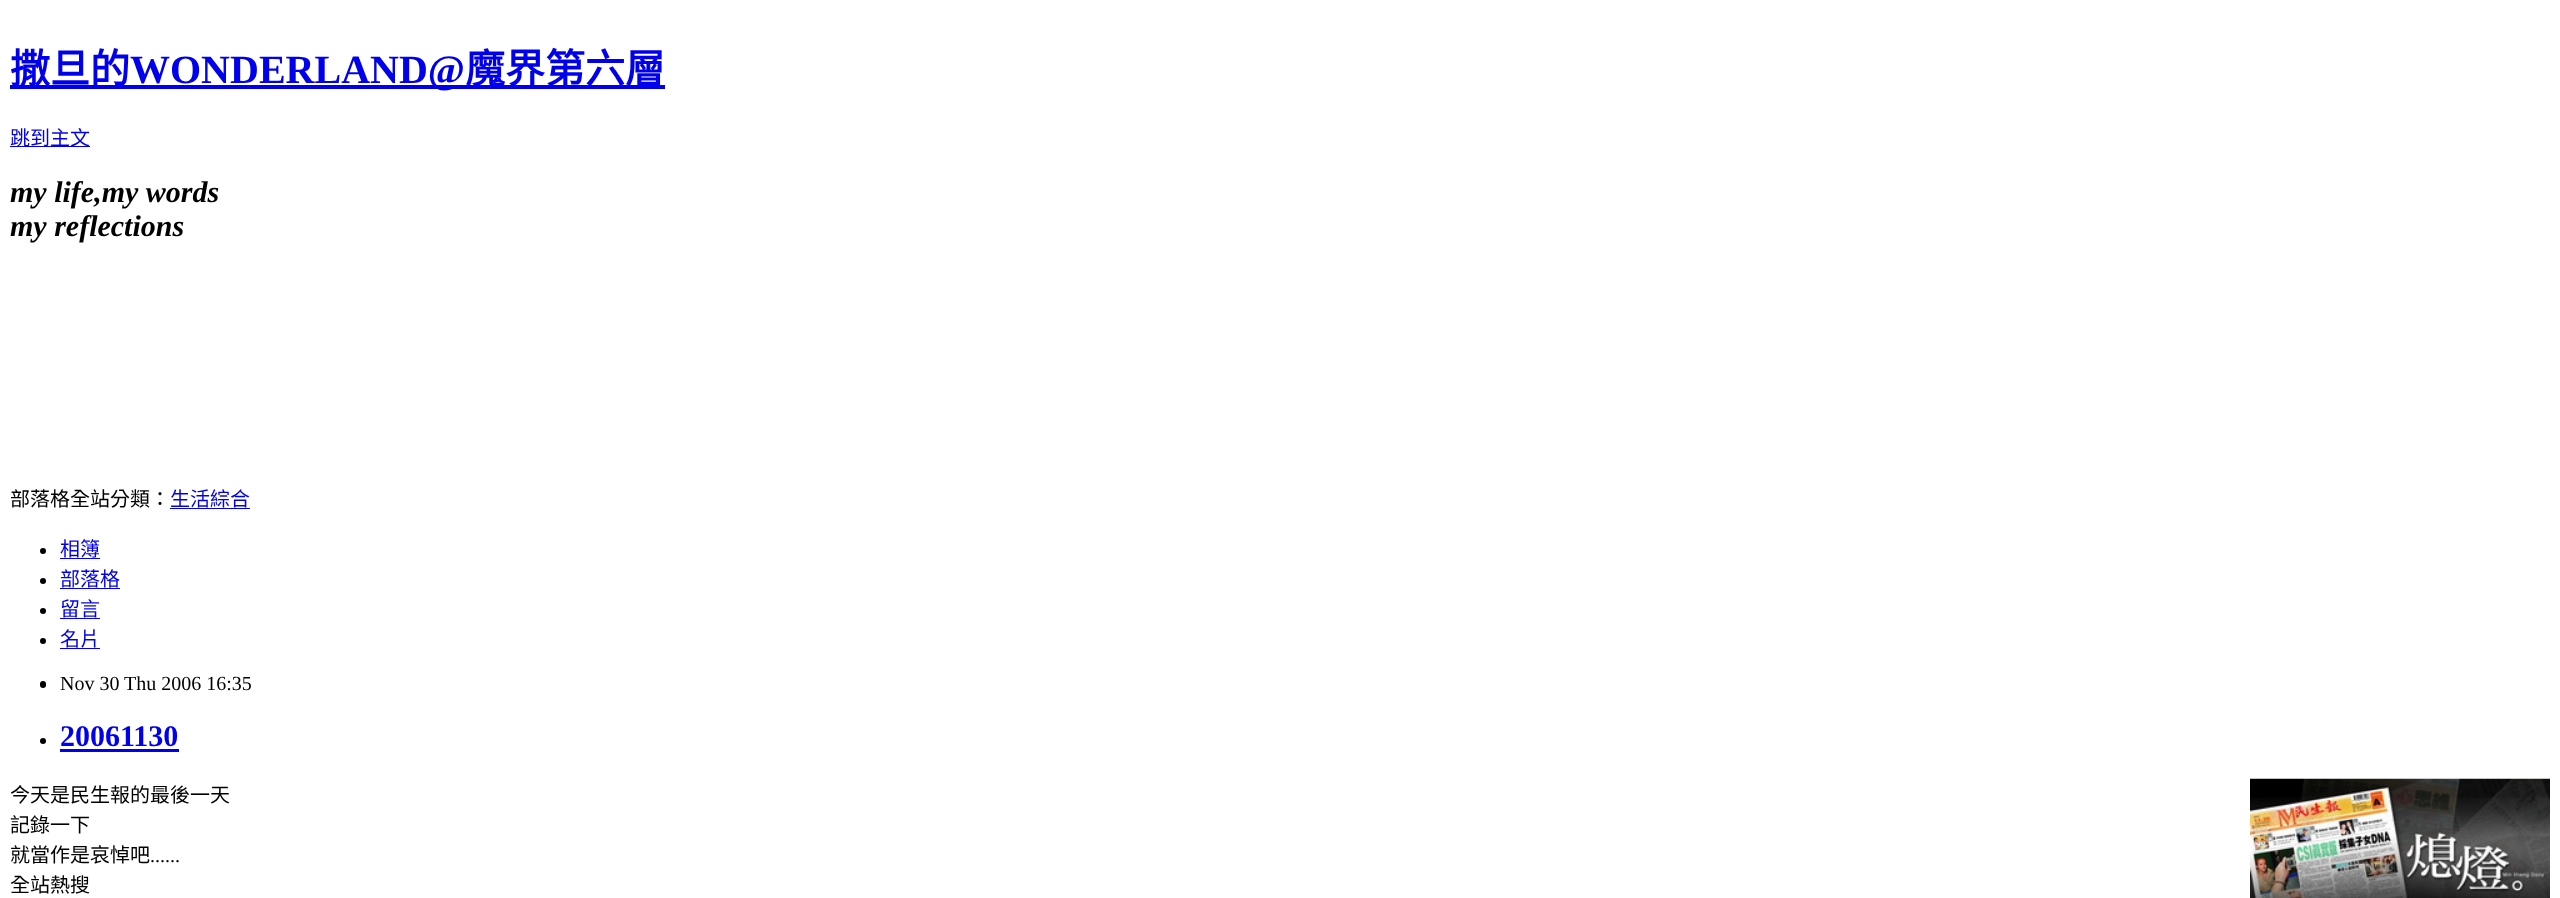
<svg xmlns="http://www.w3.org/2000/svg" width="2560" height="898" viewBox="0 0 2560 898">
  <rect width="100%" height="100%" fill="#ffffff"/>
  <rect x="10" y="85" width="655" height="4" fill="#0000ee"/>
  <text x="10" y="83" font-family="Noto Sans CJK TC" font-size="40" font-weight="bold" fill="#0000ee">撒旦的</text>
  <text x="130" y="83" font-family="Liberation Serif" font-size="40" font-weight="bold" fill="#0000ee">WONDERLAND@</text>
  <text x="465" y="83" font-family="Noto Sans CJK TC" font-size="40" font-weight="bold" fill="#0000ee">魔界第六層</text>
  <rect x="10" y="146" width="80" height="1" fill="#0000ee"/>
  <text x="10" y="145" font-family="Noto Sans CJK TC" font-size="20" fill="#0000ee">跳到主文</text>
  <text x="10" y="202" font-family="Liberation Serif" font-size="30" font-weight="bold" font-style="italic" fill="#000000">my life,my words</text>
  <text x="10" y="236" font-family="Liberation Serif" font-size="30" font-weight="bold" font-style="italic" fill="#000000">my reflections</text>
  <text x="10" y="506" font-family="Noto Sans CJK TC" font-size="20" fill="#000000">部落格全站分類：</text>
  <text x="170" y="506" font-family="Noto Sans CJK TC" font-size="20" fill="#0000ee">生活綜合</text>
  <rect x="170" y="508" width="80" height="1" fill="#0000ee"/>
  <circle cx="43" cy="551" r="3" fill="#000000"/>
  <text x="60" y="556" font-family="Noto Sans CJK TC" font-size="20" fill="#0000ee">相簿</text>
  <rect x="60" y="558" width="40" height="1" fill="#0000ee"/>
  <circle cx="43" cy="581" r="3" fill="#000000"/>
  <text x="60" y="586" font-family="Noto Sans CJK TC" font-size="20" fill="#0000ee">部落格</text>
  <rect x="60" y="588" width="60" height="1" fill="#0000ee"/>
  <circle cx="43" cy="611" r="3" fill="#000000"/>
  <text x="60" y="616" font-family="Noto Sans CJK TC" font-size="20" fill="#0000ee">留言</text>
  <rect x="60" y="618" width="40" height="1" fill="#0000ee"/>
  <circle cx="43" cy="641" r="3" fill="#000000"/>
  <text x="60" y="646" font-family="Noto Sans CJK TC" font-size="20" fill="#0000ee">名片</text>
  <rect x="60" y="648" width="40" height="1" fill="#0000ee"/>
  <rect x="40" y="681" width="6" height="7" rx="3" fill="#000000"/>
  <text x="60" y="690" font-family="Liberation Serif" font-size="20" fill="#000000">Nov 30</text>
  <text x="124" y="690" font-family="Liberation Serif" font-size="20" fill="#000000">Thu 2006 16:35</text>
  <circle cx="43" cy="741" r="3" fill="#000000"/>
  <text x="60" y="746" font-family="Liberation Serif" font-size="30" font-weight="bold" fill="#0000ee">20061130</text>
  <rect x="60" y="749" width="119" height="3" fill="#0000ee"/>
  <text x="10" y="802" font-family="Noto Sans CJK TC" font-size="20" fill="#000000">今天是民生報的最後一天</text>
  <image x="2250" y="778" width="300" height="120" href="img1.png"/>
  <text x="10" y="832" font-family="Noto Sans CJK TC" font-size="20" fill="#000000">記錄一下</text>
  <text x="10" y="862" font-family="Noto Sans CJK TC" font-size="20" fill="#000000">就當作是哀悼吧</text>
  <text x="150" y="862" font-family="Liberation Serif" font-size="20" fill="#000000">......</text>
  <text x="10" y="892" font-family="Noto Sans CJK TC" font-size="20" fill="#000000">全站熱搜</text>
</svg>
